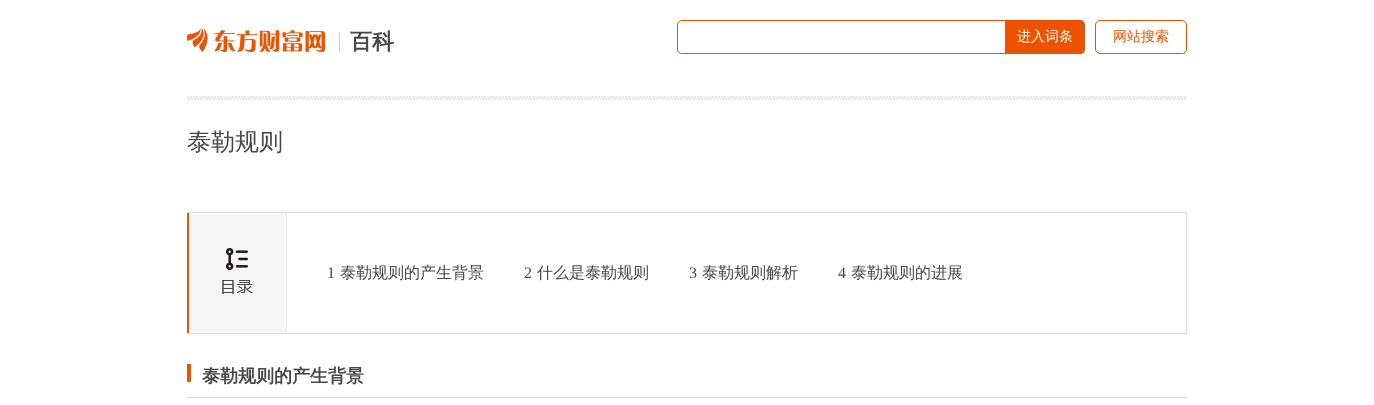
<svg xmlns="http://www.w3.org/2000/svg" width="1374" height="405" viewBox="0 0 1374 405">
  <rect width="100%" height="100%" fill="#ffffff"/>
  <image x="187" y="96" width="1000" height="4" href="img1.png"/>
  <image x="187" y="28" width="138" height="24" href="img2.png"/>
  <rect x="339" y="32" width="1" height="20" fill="#cecece"/>
  <text x="350" y="49" font-family="WenQuanYi Zen Hei" font-size="22" font-weight="bold" fill="#474747">百科</text>
  <rect x="677.5" y="20.5" width="333" height="33" rx="4.5" fill="none" stroke="#ec5200"/>
  <path d="M1005 20H1080C1083 20 1085 22 1085 25V49C1085 52 1083 54 1080 54H1005Z" fill="#ec5200"/>
  <text x="1017" y="41" font-family="WenQuanYi Zen Hei" font-size="14" font-weight="500" fill="#ffffff">进入词条</text>
  <rect x="1095.5" y="20.5" width="91" height="33" rx="4.5" fill="none" stroke="#ec5200"/>
  <text x="1113" y="41" font-family="WenQuanYi Zen Hei" font-size="14" font-weight="500" fill="#ec5200">网站搜索</text>
  <text x="187" y="150" font-family="WenQuanYi Zen Hei" font-size="24" font-weight="500" fill="#474747">泰勒规则</text>
  <rect x="187" y="212" width="1000" height="1" fill="#dcdcdc"/>
  <rect x="1186" y="212" width="1" height="122" fill="#dcdcdc"/>
  <rect x="187" y="333" width="1000" height="1" fill="#dcdcdc"/>
  <rect x="189" y="213" width="97" height="120" fill="#f6f6f6"/>
  <image x="222" y="248" width="31" height="46" href="img3.png"/>
  <rect x="286" y="213" width="1" height="120" fill="#eeeeee"/>
  <rect x="187" y="213" width="2" height="120" fill="#e95504"/>
  <text x="327" y="278" font-family="Liberation Serif" font-size="16" fill="#474747">1</text>
  <text x="340" y="278" font-family="WenQuanYi Zen Hei" font-size="16" font-weight="500" fill="#474747">泰勒规则的产生背景</text>
  <text x="524" y="278" font-family="Liberation Serif" font-size="16" fill="#474747">2</text>
  <text x="537" y="278" font-family="WenQuanYi Zen Hei" font-size="16" font-weight="500" fill="#474747">什么是泰勒规则</text>
  <text x="689" y="278" font-family="Liberation Serif" font-size="16" fill="#474747">3</text>
  <text x="702" y="278" font-family="WenQuanYi Zen Hei" font-size="16" font-weight="500" fill="#474747">泰勒规则解析</text>
  <text x="838" y="278" font-family="Liberation Serif" font-size="16" fill="#474747">4</text>
  <text x="851" y="278" font-family="WenQuanYi Zen Hei" font-size="16" font-weight="500" fill="#474747">泰勒规则的进展</text>
  <rect x="187" y="364" width="4" height="18" fill="#e95504"/>
  <rect x="187" y="397" width="1000" height="1" fill="#d7d7d7"/>
  <text x="202" y="382" font-family="WenQuanYi Zen Hei" font-size="18" font-weight="bold" fill="#474747">泰勒规则的产生背景</text>
</svg>
